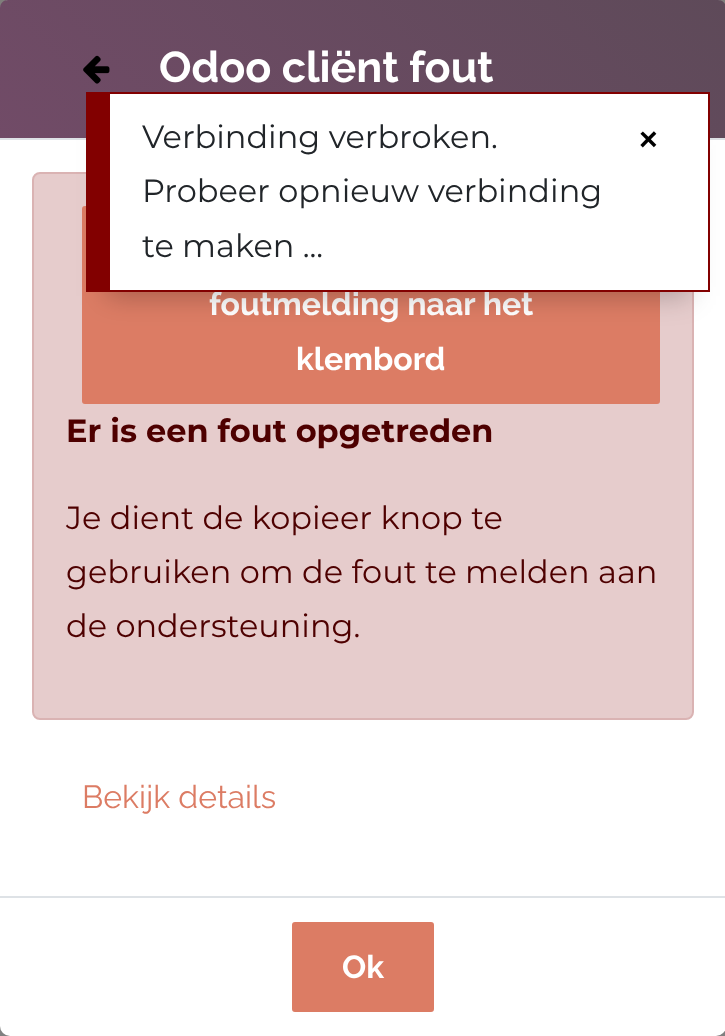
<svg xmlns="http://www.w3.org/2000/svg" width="725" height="1036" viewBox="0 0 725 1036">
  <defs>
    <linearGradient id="g1" gradientUnits="userSpaceOnUse" x1="147" y1="285" x2="579" y2="-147"><stop offset="0" stop-color="#714b67"/><stop offset="1" stop-color="#5e4a59"/></linearGradient>
    <filter id="blur1" x="-50%" y="-200%" width="200%" height="500%"><feGaussianBlur stdDeviation="14"/></filter>
  </defs>
  <rect width="100%" height="100%" fill="#808080"/>
  <rect x="0" y="0" width="725" height="8" fill="#7f7e7b"/>
  <rect x="0" y="0" width="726" height="1036" rx="10" fill="#ffffff"/>
  <path d="M8 0H718C722.5 0 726 3.5 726 8V138H0V8C0 3.5 3.5 0 8 0Z" fill="url(#g1)"/>
  <rect x="0" y="138" width="725" height="2" fill="#dee2e6"/>
  <image x="83" y="55" width="27" height="29" href="img1.png"/>
  <text x="159" y="82" font-family="Raleway" font-size="43" font-weight="bold" fill="#ffffff">Odoo cliënt fout</text>
  <rect x="33" y="173" width="660" height="546" rx="7" fill="#e6cccc" stroke="#dab3b3" stroke-width="2"/>
  <rect x="83" y="207" width="576" height="196" rx="2" fill="#dc7c64" stroke="#dc7c64" stroke-width="2"/>
  <text x="209" y="315" font-family="Raleway" font-size="32" font-weight="bold" fill="#ffffff">foutmelding naar het</text>
  <text x="296" y="370" font-family="Raleway" font-size="32" font-weight="bold" fill="#ffffff">klembord</text>
  <text x="66" y="442" font-family="Montserrat" font-size="32" font-weight="bold" fill="#4e0000">Er is een fout opgetreden</text>
  <text x="66" y="529" font-family="Montserrat" font-size="32" fill="#4e0000">Je dient de kopieer knop te</text>
  <text x="66" y="583" font-family="Montserrat" font-size="32" fill="#4e0000">gebruiken om de fout te melden aan</text>
  <text x="66" y="637" font-family="Montserrat" font-size="32" fill="#4e0000">de ondersteuning.</text>
  <text x="82" y="808" font-family="Raleway" font-size="32" fill="#dc7c64">Bekijk details</text>
  <rect x="0" y="896" width="725" height="2" fill="#dee2e6"/>
  <rect x="293" y="923" width="140" height="88" rx="2" fill="#dc7c64" stroke="#dc7c64" stroke-width="2"/>
  <text x="342" y="978" font-family="Raleway" font-size="32" font-weight="bold" fill="#ffffff">Ok</text>
  <rect x="106" y="136" width="584" height="160" fill="#000000" fill-opacity="0.25" filter="url(#blur1)"/>
  <rect x="110" y="94" width="598" height="196" fill="#ffffff"/>
  <rect x="110" y="92" width="600" height="2" fill="#820000"/>
  <rect x="708" y="92" width="2" height="200" fill="#820000"/>
  <rect x="110" y="290" width="600" height="2" fill="#820000"/>
  <rect x="86" y="92" width="24" height="200" fill="#820000"/>
  <text x="142" y="148" font-family="Montserrat" font-size="32" fill="#212529">Verbinding verbroken.</text>
  <text x="142" y="202" font-family="Montserrat" font-size="32" fill="#212529">Probeer opnieuw verbinding</text>
  <text x="142" y="257" font-family="Montserrat" font-size="32" fill="#212529">te maken ...</text>
  <text x="639" y="150" font-family="Liberation Sans" font-size="32" font-weight="bold" fill="#000000">×</text>
</svg>
